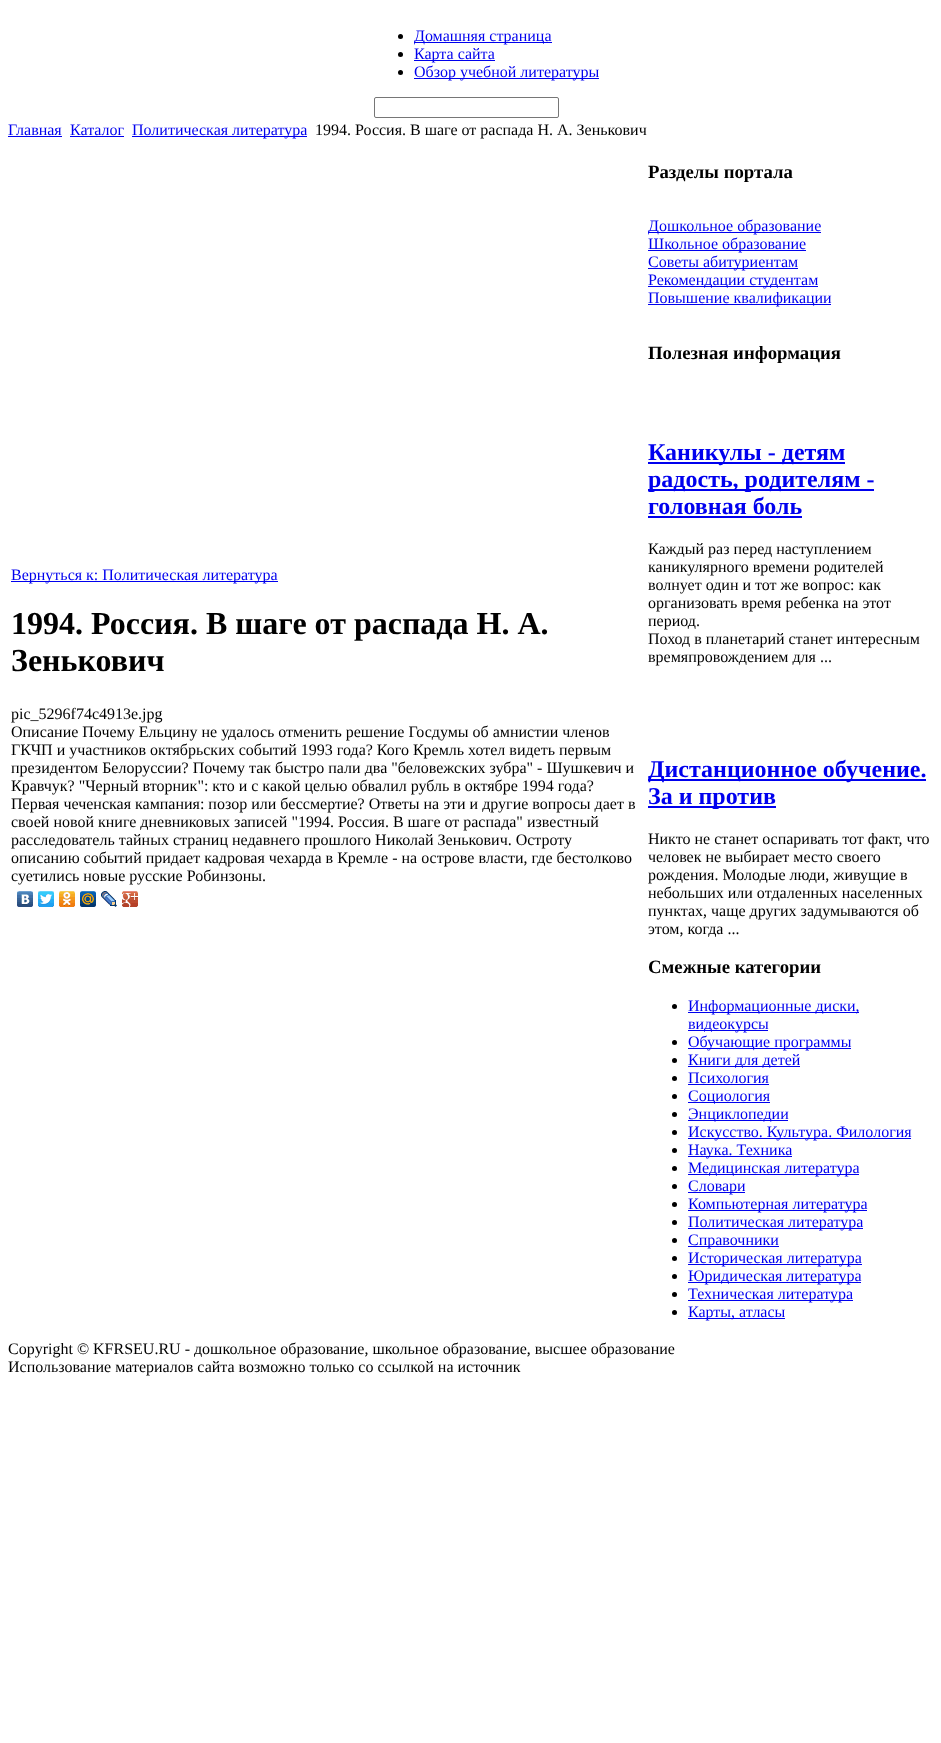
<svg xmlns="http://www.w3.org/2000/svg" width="941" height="1743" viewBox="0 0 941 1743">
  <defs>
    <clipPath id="clip1"><rect x="648" y="201" width="282" height="122"/></clipPath>
  </defs>
  <rect width="100%" height="100%" fill="#ffffff"/>
  <circle cx="400.5" cy="36.5" r="2.5" fill="#000000"/>
  <rect x="414" y="42" width="138" height="1" fill="#0000ee"/>
  <text x="414" y="41" font-family="Liberation Serif" font-size="16" fill="#0000ee">Домашняя страница</text>
  <circle cx="400.5" cy="54.5" r="2.5" fill="#000000"/>
  <rect x="414" y="60" width="81" height="1" fill="#0000ee"/>
  <text x="414" y="59" font-family="Liberation Serif" font-size="16" fill="#0000ee">Карта сайта</text>
  <circle cx="400.5" cy="72.5" r="2.5" fill="#000000"/>
  <rect x="414" y="78" width="185" height="1" fill="#0000ee"/>
  <text x="414" y="77" font-family="Liberation Serif" font-size="16" fill="#0000ee">Обзор учебной литературы</text>
  <rect x="374.5" y="97.5" width="184" height="20" rx="1.5" fill="none" stroke="#767676"/>
  <text x="8" y="135" font-family="Liberation Serif" font-size="16" fill="#0000ee">Главная</text>
  <rect x="8" y="136" width="54" height="1" fill="#0000ee"/>
  <text x="70" y="135" font-family="Liberation Serif" font-size="16" fill="#0000ee">Каталог</text>
  <rect x="70" y="136" width="54" height="1" fill="#0000ee"/>
  <rect x="132" y="136" width="175" height="1" fill="#0000ee"/>
  <text x="132" y="135" font-family="Liberation Serif" font-size="16" fill="#0000ee">Политическая литература</text>
  <text x="315" y="135" font-family="Liberation Serif" font-size="16" fill="#000000">1994. Россия. В шаге от распада Н. А. Зенькович</text>
  <rect x="11" y="581" width="267" height="1" fill="#0000ee"/>
  <text x="11" y="580" font-family="Liberation Serif" font-size="16" fill="#0000ee">Вернуться к: Политическая литература</text>
  <text x="11" y="634" font-family="Liberation Serif" font-size="32" font-weight="bold" fill="#000000">1994. Россия. В шаге от распада Н. А.</text>
  <text x="11" y="671" font-family="Liberation Serif" font-size="32" font-weight="bold" fill="#000000">Зенькович</text>
  <text x="11" y="719" font-family="Liberation Serif" font-size="16" fill="#000000">pic_5296f74c4913e.jpg</text>
  <text x="11" y="737" font-family="Liberation Serif" font-size="16" fill="#000000">Описание Почему Ельцину не удалось отменить решение Госдумы об амнистии членов</text>
  <text x="11" y="755" font-family="Liberation Serif" font-size="16" fill="#000000">ГКЧП и участников октябрьских событий 1993 года? Кого Кремль хотел видеть первым</text>
  <text x="11" y="773" font-family="Liberation Serif" font-size="16" fill="#000000">президентом Белоруссии? Почему так быстро пали два "беловежских зубра" - Шушкевич и</text>
  <text x="11" y="791" font-family="Liberation Serif" font-size="16" fill="#000000">Кравчук? "Черный вторник": кто и с какой целью обвалил рубль в октябре 1994 года?</text>
  <text x="11" y="809" font-family="Liberation Serif" font-size="16" fill="#000000">Первая чеченская кампания: позор или бессмертие? Ответы на эти и другие вопросы дает в</text>
  <text x="11" y="827" font-family="Liberation Serif" font-size="16" fill="#000000">своей новой книге дневниковых записей "1994. Россия. В шаге от распада" известный</text>
  <text x="11" y="845" font-family="Liberation Serif" font-size="16" fill="#000000">расследователь тайных страниц недавнего прошлого Николай Зенькович. Остроту</text>
  <text x="11" y="863" font-family="Liberation Serif" font-size="16" fill="#000000">описанию событий придает кадровая чехарда в Кремле - на острове власти, где бестолково</text>
  <text x="11" y="881" font-family="Liberation Serif" font-size="16" fill="#000000">суетились новые русские Робинзоны.</text>
  <image x="17" y="891" width="16" height="16" href="img1.png"/>
  <image x="38" y="891" width="16" height="16" href="img2.png"/>
  <image x="59" y="891" width="16" height="16" href="img3.png"/>
  <image x="80" y="891" width="16" height="16" href="img4.png"/>
  <image x="101" y="891" width="16" height="16" href="img5.png"/>
  <image x="122" y="891" width="16" height="16" href="img6.png"/>
  <text x="648" y="178" font-family="Liberation Serif" font-size="18.75" font-weight="bold" fill="#000000">Разделы портала</text>
  <rect x="648" y="232" width="173" height="1" fill="#0000ee"/>
  <g clip-path="url(#clip1)">
    <text x="648" y="231" font-family="Liberation Serif" font-size="16" fill="#0000ee">Дошкольное образование</text>
  </g>
  <rect x="648" y="250" width="158" height="1" fill="#0000ee"/>
  <text x="648" y="249" font-family="Liberation Serif" font-size="16" fill="#0000ee">Школьное образование</text>
  <rect x="648" y="268" width="150" height="1" fill="#0000ee"/>
  <text x="648" y="267" font-family="Liberation Serif" font-size="16" fill="#0000ee">Советы абитуриентам</text>
  <rect x="648" y="286" width="170" height="1" fill="#0000ee"/>
  <text x="648" y="285" font-family="Liberation Serif" font-size="16" fill="#0000ee">Рекомендации студентам</text>
  <rect x="648" y="304" width="183" height="1" fill="#0000ee"/>
  <text x="648" y="303" font-family="Liberation Serif" font-size="16" fill="#0000ee">Повышение квалификации</text>
  <text x="648" y="359" font-family="Liberation Serif" font-size="18.75" font-weight="bold" fill="#000000">Полезная информация</text>
  <rect x="648" y="462" width="197" height="2" fill="#0000ee"/>
  <text x="648" y="460" font-family="Liberation Serif" font-size="24" font-weight="bold" fill="#0000ee">Каникулы - детям</text>
  <rect x="648" y="489" width="226" height="2" fill="#0000ee"/>
  <text x="648" y="487" font-family="Liberation Serif" font-size="24" font-weight="bold" fill="#0000ee">радость, родителям -</text>
  <text x="648" y="514" font-family="Liberation Serif" font-size="24" font-weight="bold" fill="#0000ee">головная боль</text>
  <rect x="648" y="516" width="154" height="2" fill="#0000ee"/>
  <text x="648" y="554" font-family="Liberation Serif" font-size="16" fill="#000000">Каждый раз перед наступлением</text>
  <text x="648" y="572" font-family="Liberation Serif" font-size="16" fill="#000000">каникулярного времени родителей</text>
  <text x="648" y="590" font-family="Liberation Serif" font-size="16" fill="#000000">волнует один и тот же вопрос: как</text>
  <text x="648" y="608" font-family="Liberation Serif" font-size="16" fill="#000000">организовать время ребенка на этот</text>
  <text x="648" y="626" font-family="Liberation Serif" font-size="16" fill="#000000">период.</text>
  <text x="648" y="644" font-family="Liberation Serif" font-size="16" fill="#000000">Поход в планетарий станет интересным</text>
  <text x="648" y="662" font-family="Liberation Serif" font-size="16" fill="#000000">времяпровождением для ...</text>
  <rect x="648" y="779" width="278" height="2" fill="#0000ee"/>
  <text x="648" y="777" font-family="Liberation Serif" font-size="24" font-weight="bold" fill="#0000ee">Дистанционное обучение.</text>
  <rect x="648" y="806" width="128" height="2" fill="#0000ee"/>
  <text x="648" y="804" font-family="Liberation Serif" font-size="24" font-weight="bold" fill="#0000ee">За и против</text>
  <text x="648" y="844" font-family="Liberation Serif" font-size="16" fill="#000000">Никто не станет оспаривать тот факт, что</text>
  <text x="648" y="862" font-family="Liberation Serif" font-size="16" fill="#000000">человек не выбирает место своего</text>
  <text x="648" y="880" font-family="Liberation Serif" font-size="16" fill="#000000">рождения. Молодые люди, живущие в</text>
  <text x="648" y="898" font-family="Liberation Serif" font-size="16" fill="#000000">небольших или отдаленных населенных</text>
  <text x="648" y="916" font-family="Liberation Serif" font-size="16" fill="#000000">пунктах, чаще других задумываются об</text>
  <text x="648" y="934" font-family="Liberation Serif" font-size="16" fill="#000000">этом, когда ...</text>
  <text x="648" y="973" font-family="Liberation Serif" font-size="18.75" font-weight="bold" fill="#000000">Смежные категории</text>
  <circle cx="674.5" cy="1006.5" r="2.5" fill="#000000"/>
  <rect x="688" y="1012" width="171" height="1" fill="#0000ee"/>
  <text x="688" y="1011" font-family="Liberation Serif" font-size="16" fill="#0000ee">Информационные диски,</text>
  <rect x="688" y="1030" width="80" height="1" fill="#0000ee"/>
  <text x="688" y="1029" font-family="Liberation Serif" font-size="16" fill="#0000ee">видеокурсы</text>
  <circle cx="674.5" cy="1042.5" r="2.5" fill="#000000"/>
  <rect x="688" y="1048" width="163" height="1" fill="#0000ee"/>
  <text x="688" y="1047" font-family="Liberation Serif" font-size="16" fill="#0000ee">Обучающие программы</text>
  <circle cx="674.5" cy="1060.5" r="2.5" fill="#000000"/>
  <rect x="688" y="1066" width="112" height="1" fill="#0000ee"/>
  <text x="688" y="1065" font-family="Liberation Serif" font-size="16" fill="#0000ee">Книги для детей</text>
  <circle cx="674.5" cy="1078.5" r="2.5" fill="#000000"/>
  <text x="688" y="1083" font-family="Liberation Serif" font-size="16" fill="#0000ee">Психология</text>
  <rect x="688" y="1084" width="81" height="1" fill="#0000ee"/>
  <circle cx="674.5" cy="1096.5" r="2.5" fill="#000000"/>
  <rect x="688" y="1102" width="82" height="1" fill="#0000ee"/>
  <text x="688" y="1101" font-family="Liberation Serif" font-size="16" fill="#0000ee">Социология</text>
  <circle cx="674.5" cy="1114.5" r="2.5" fill="#000000"/>
  <rect x="688" y="1120" width="100" height="1" fill="#0000ee"/>
  <text x="688" y="1119" font-family="Liberation Serif" font-size="16" fill="#0000ee">Энциклопедии</text>
  <circle cx="674.5" cy="1132.5" r="2.5" fill="#000000"/>
  <rect x="688" y="1138" width="223" height="1" fill="#0000ee"/>
  <text x="688" y="1137" font-family="Liberation Serif" font-size="16" fill="#0000ee">Искусство. Культура. Филология</text>
  <circle cx="674.5" cy="1150.5" r="2.5" fill="#000000"/>
  <rect x="688" y="1156" width="104" height="1" fill="#0000ee"/>
  <text x="688" y="1155" font-family="Liberation Serif" font-size="16" fill="#0000ee">Наука. Техника</text>
  <circle cx="674.5" cy="1168.5" r="2.5" fill="#000000"/>
  <rect x="688" y="1174" width="171" height="1" fill="#0000ee"/>
  <text x="688" y="1173" font-family="Liberation Serif" font-size="16" fill="#0000ee">Медицинская литература</text>
  <circle cx="674.5" cy="1186.5" r="2.5" fill="#000000"/>
  <rect x="688" y="1192" width="57" height="1" fill="#0000ee"/>
  <text x="688" y="1191" font-family="Liberation Serif" font-size="16" fill="#0000ee">Словари</text>
  <circle cx="674.5" cy="1204.5" r="2.5" fill="#000000"/>
  <rect x="688" y="1210" width="179" height="1" fill="#0000ee"/>
  <text x="688" y="1209" font-family="Liberation Serif" font-size="16" fill="#0000ee">Компьютерная литература</text>
  <circle cx="674.5" cy="1222.5" r="2.5" fill="#000000"/>
  <rect x="688" y="1228" width="175" height="1" fill="#0000ee"/>
  <text x="688" y="1227" font-family="Liberation Serif" font-size="16" fill="#0000ee">Политическая литература</text>
  <circle cx="674.5" cy="1240.5" r="2.5" fill="#000000"/>
  <rect x="688" y="1246" width="91" height="1" fill="#0000ee"/>
  <text x="688" y="1245" font-family="Liberation Serif" font-size="16" fill="#0000ee">Справочники</text>
  <circle cx="674.5" cy="1258.5" r="2.5" fill="#000000"/>
  <rect x="688" y="1264" width="174" height="1" fill="#0000ee"/>
  <text x="688" y="1263" font-family="Liberation Serif" font-size="16" fill="#0000ee">Историческая литература</text>
  <circle cx="674.5" cy="1276.5" r="2.5" fill="#000000"/>
  <rect x="688" y="1282" width="173" height="1" fill="#0000ee"/>
  <text x="688" y="1281" font-family="Liberation Serif" font-size="16" fill="#0000ee">Юридическая литература</text>
  <circle cx="674.5" cy="1294.5" r="2.5" fill="#000000"/>
  <rect x="688" y="1300" width="165" height="1" fill="#0000ee"/>
  <text x="688" y="1299" font-family="Liberation Serif" font-size="16" fill="#0000ee">Техническая литература</text>
  <circle cx="674.5" cy="1312.5" r="2.5" fill="#000000"/>
  <rect x="688" y="1318" width="97" height="1" fill="#0000ee"/>
  <text x="688" y="1317" font-family="Liberation Serif" font-size="16" fill="#0000ee">Карты, атласы</text>
  <text x="8" y="1354" font-family="Liberation Serif" font-size="16" fill="#000000">Copyright © KFRSEU.RU - дошкольное образование, школьное образование, высшее образование</text>
  <text x="8" y="1372" font-family="Liberation Serif" font-size="16" fill="#000000">Использование материалов сайта возможно только со ссылкой на источник</text>
</svg>
